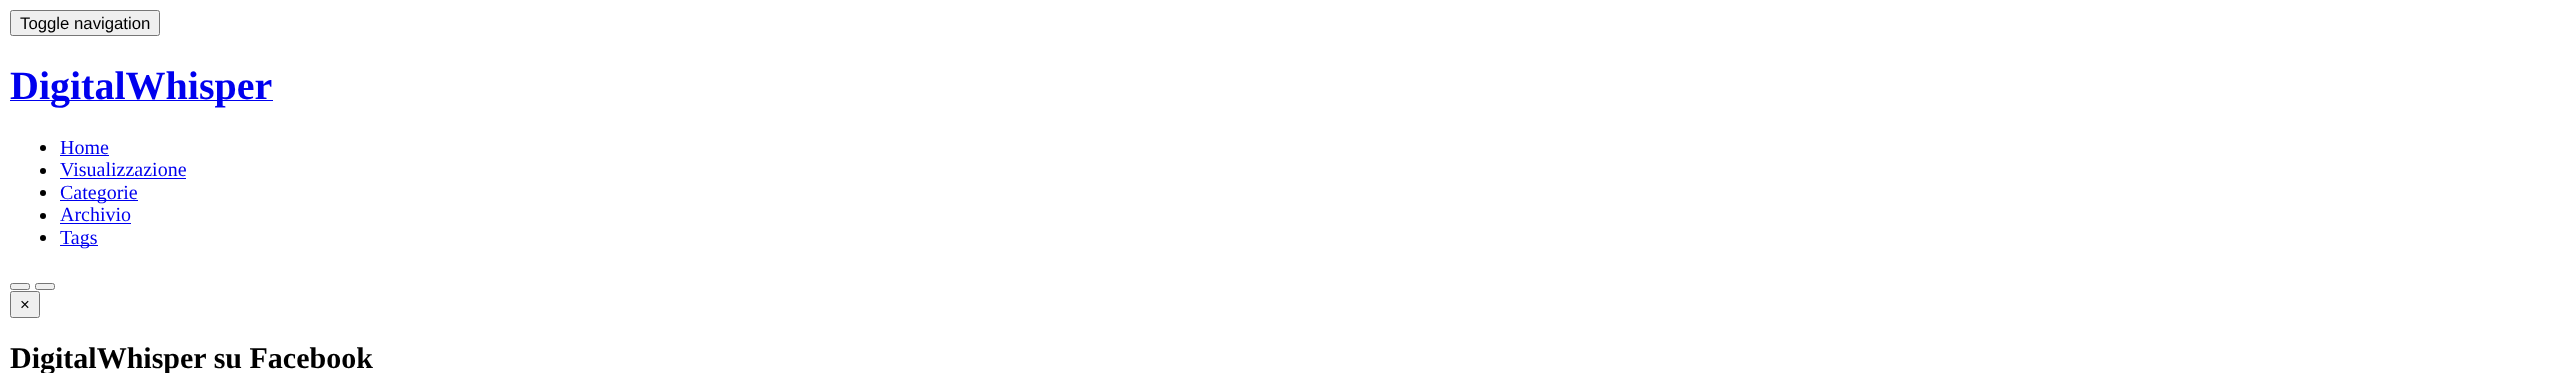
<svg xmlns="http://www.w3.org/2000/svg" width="2574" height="373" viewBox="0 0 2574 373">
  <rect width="100%" height="100%" fill="#ffffff"/>
  <rect x="10.5" y="10.5" width="149" height="25" rx="2" fill="#efefef" stroke="#767676"/>
  <text x="20" y="29" font-family="Liberation Sans" font-size="16.75" fill="#000000">Toggle navigation</text>
  <rect x="10" y="100" width="263" height="1" fill="#0000ee"/>
  <text x="10" y="99" font-family="Liberation Serif" font-size="40" font-weight="bold" fill="#0000ee">DigitalWhisper</text>
  <circle cx="43" cy="148" r="3" fill="#000000"/>
  <text x="60" y="154" font-family="Liberation Serif" font-size="20" fill="#0000ee">Home</text>
  <rect x="60" y="155" width="49" height="1" fill="#0000ee"/>
  <circle cx="43" cy="171" r="3" fill="#000000"/>
  <text x="60" y="176" font-family="Liberation Serif" font-size="20" fill="#0000ee">Visualizzazione</text>
  <rect x="60" y="178" width="126" height="1" fill="#0000ee"/>
  <circle cx="43" cy="193" r="3" fill="#000000"/>
  <rect x="60" y="200" width="78" height="1" fill="#0000ee"/>
  <text x="60" y="199" font-family="Liberation Serif" font-size="20" fill="#0000ee">Categorie</text>
  <circle cx="43" cy="216" r="3" fill="#000000"/>
  <text x="60" y="221" font-family="Liberation Serif" font-size="20" fill="#0000ee">Archivio</text>
  <rect x="60" y="223" width="71" height="1" fill="#0000ee"/>
  <circle cx="43" cy="238" r="3" fill="#000000"/>
  <rect x="60" y="245" width="38" height="1" fill="#0000ee"/>
  <text x="60" y="244" font-family="Liberation Serif" font-size="20" fill="#0000ee">Tags</text>
  <rect x="10.5" y="283.5" width="19" height="6" rx="2" fill="#efefef" stroke="#767676"/>
  <rect x="35.5" y="283.5" width="19" height="6" rx="2" fill="#efefef" stroke="#767676"/>
  <rect x="10.5" y="291.5" width="29" height="26" rx="2" fill="#efefef" stroke="#767676"/>
  <text x="20" y="310" font-family="Liberation Sans" font-size="16.75" fill="#000000">×</text>
  <text x="10" y="368" font-family="Liberation Serif" font-size="30" font-weight="bold" fill="#000000">DigitalWhisper su Facebook</text>
</svg>
